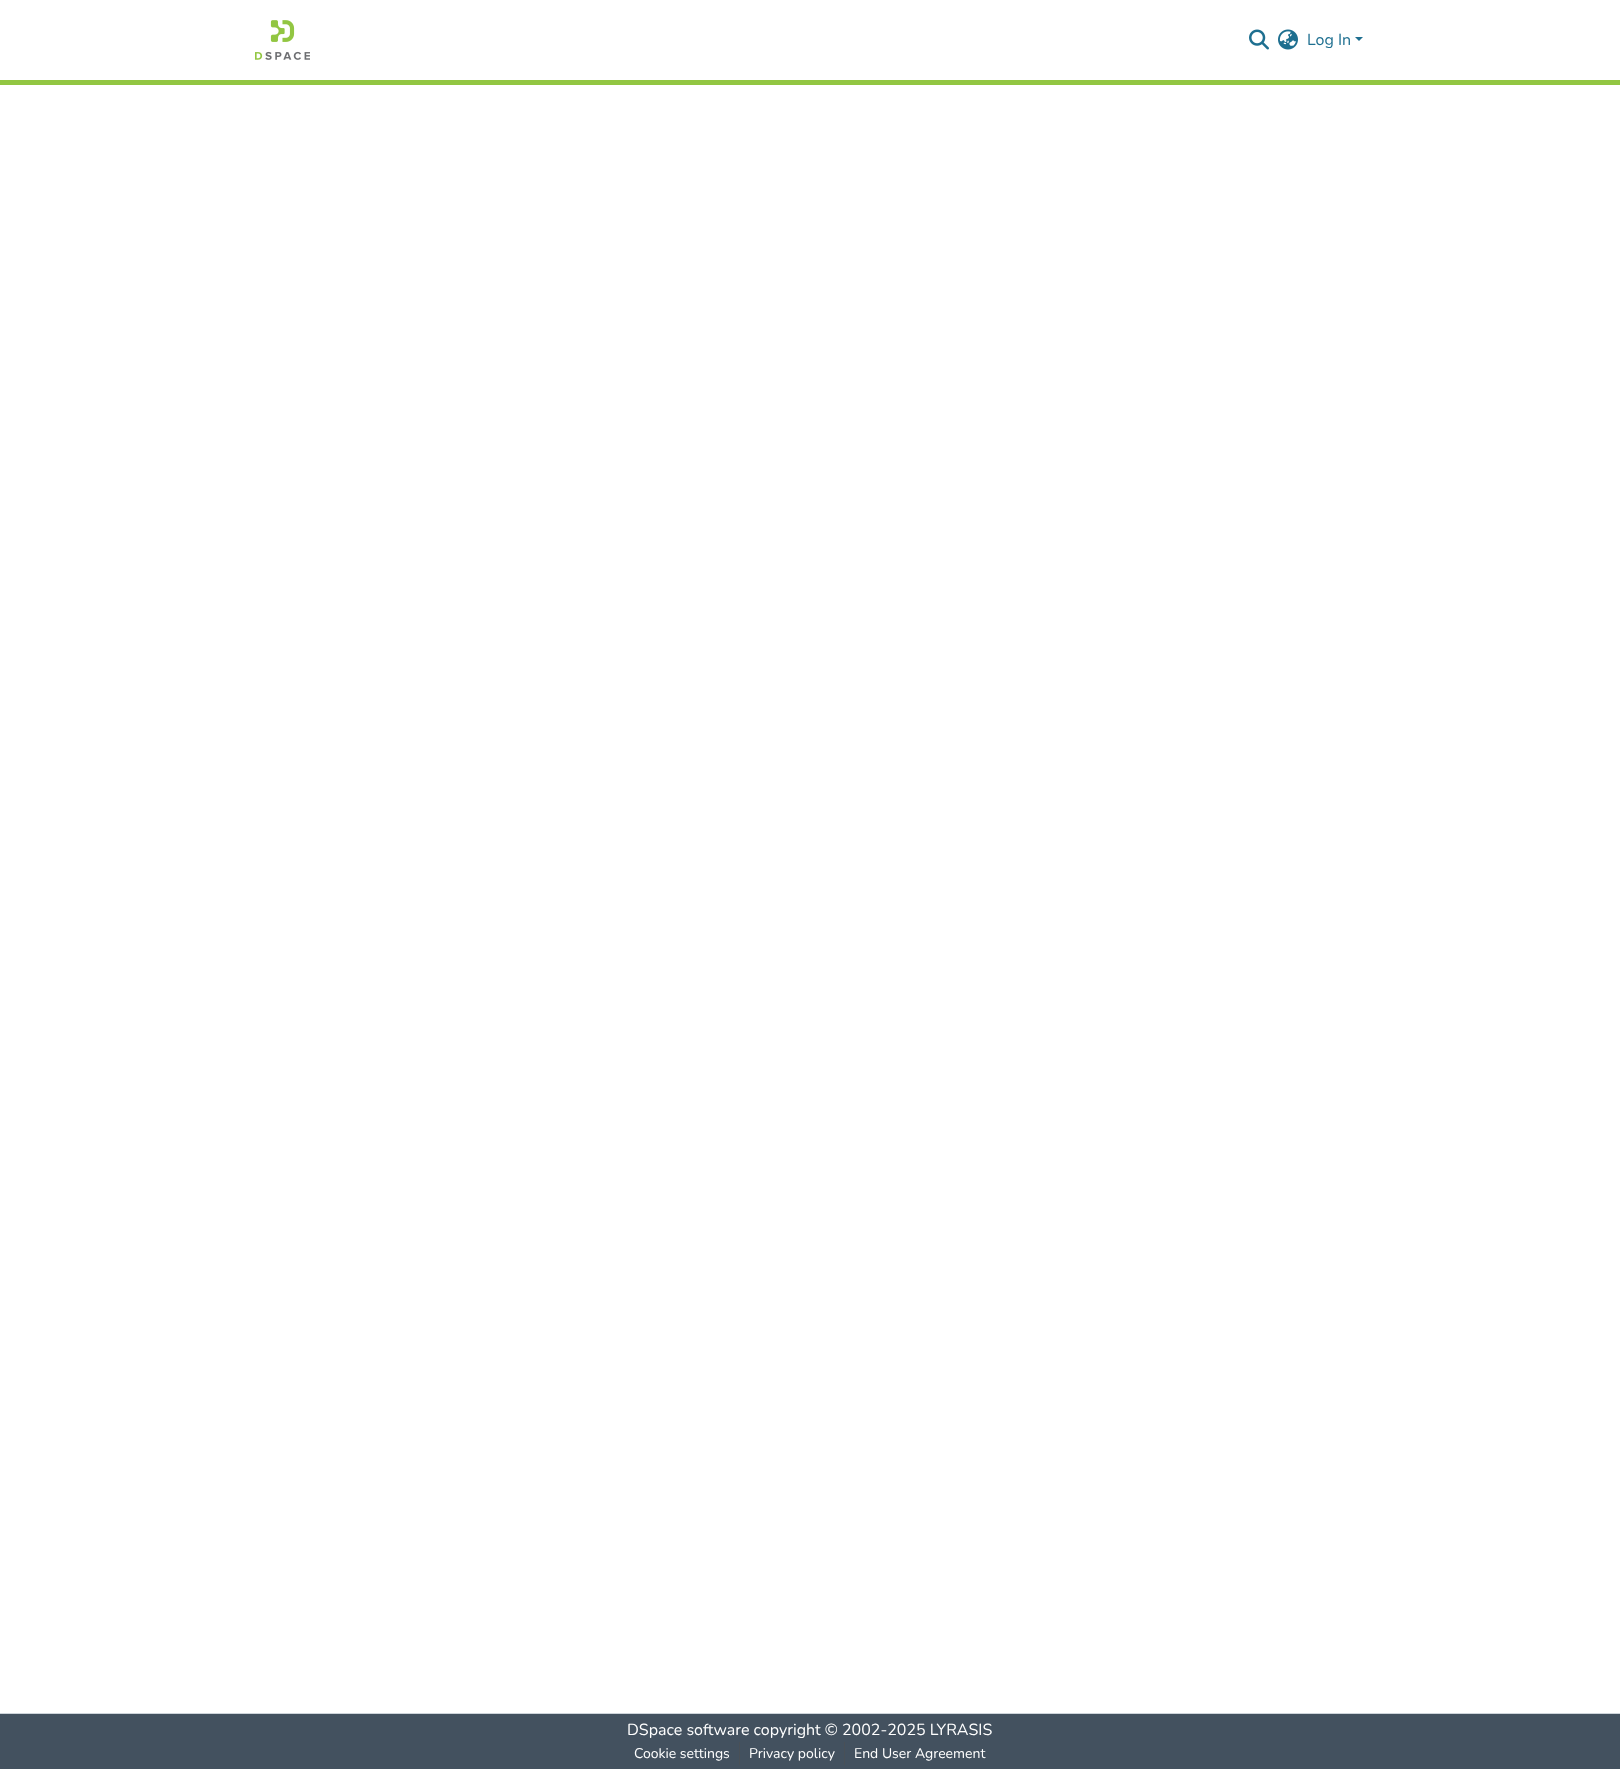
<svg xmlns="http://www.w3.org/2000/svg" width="1620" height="1769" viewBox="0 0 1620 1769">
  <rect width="100%" height="100%" fill="#ffffff"/>
  <rect x="0" y="80" width="1620" height="5" fill="#92c642"/>
  <image x="255" y="20" width="55" height="40" href="img1.png"/>
  <image x="1249" y="29" width="20" height="21" href="img2.png"/>
  <image x="1278" y="29" width="20" height="21" href="img3.png"/>
  <text x="1307" y="45" font-family="Nunito" font-size="16" fill="#1e6f90">Log In</text>
  <path d="M1355 37H1363L1359 41Z" fill="#1e6f90"/>
  <rect x="0" y="1714" width="1620" height="55" fill="#43515f"/>
  <rect x="0" y="1713" width="1620" height="1" fill="#ced4da"/>
  <text x="627" y="1735" font-family="Nunito" font-size="16" fill="#ffffff">DSpace software copyright © 2002-2025 LYRASIS</text>
  <text x="634" y="1758" font-family="Nunito" font-size="14" fill="#ffffff">Cookie settings</text>
  <rect x="739" y="1742" width="1" height="23" fill="#495057"/>
  <text x="749" y="1758" font-family="Nunito" font-size="14" fill="#ffffff">Privacy policy</text>
  <rect x="844" y="1742" width="1" height="23" fill="#495057"/>
  <text x="854" y="1758" font-family="Nunito" font-size="14" fill="#ffffff">End User Agreement</text>
</svg>
